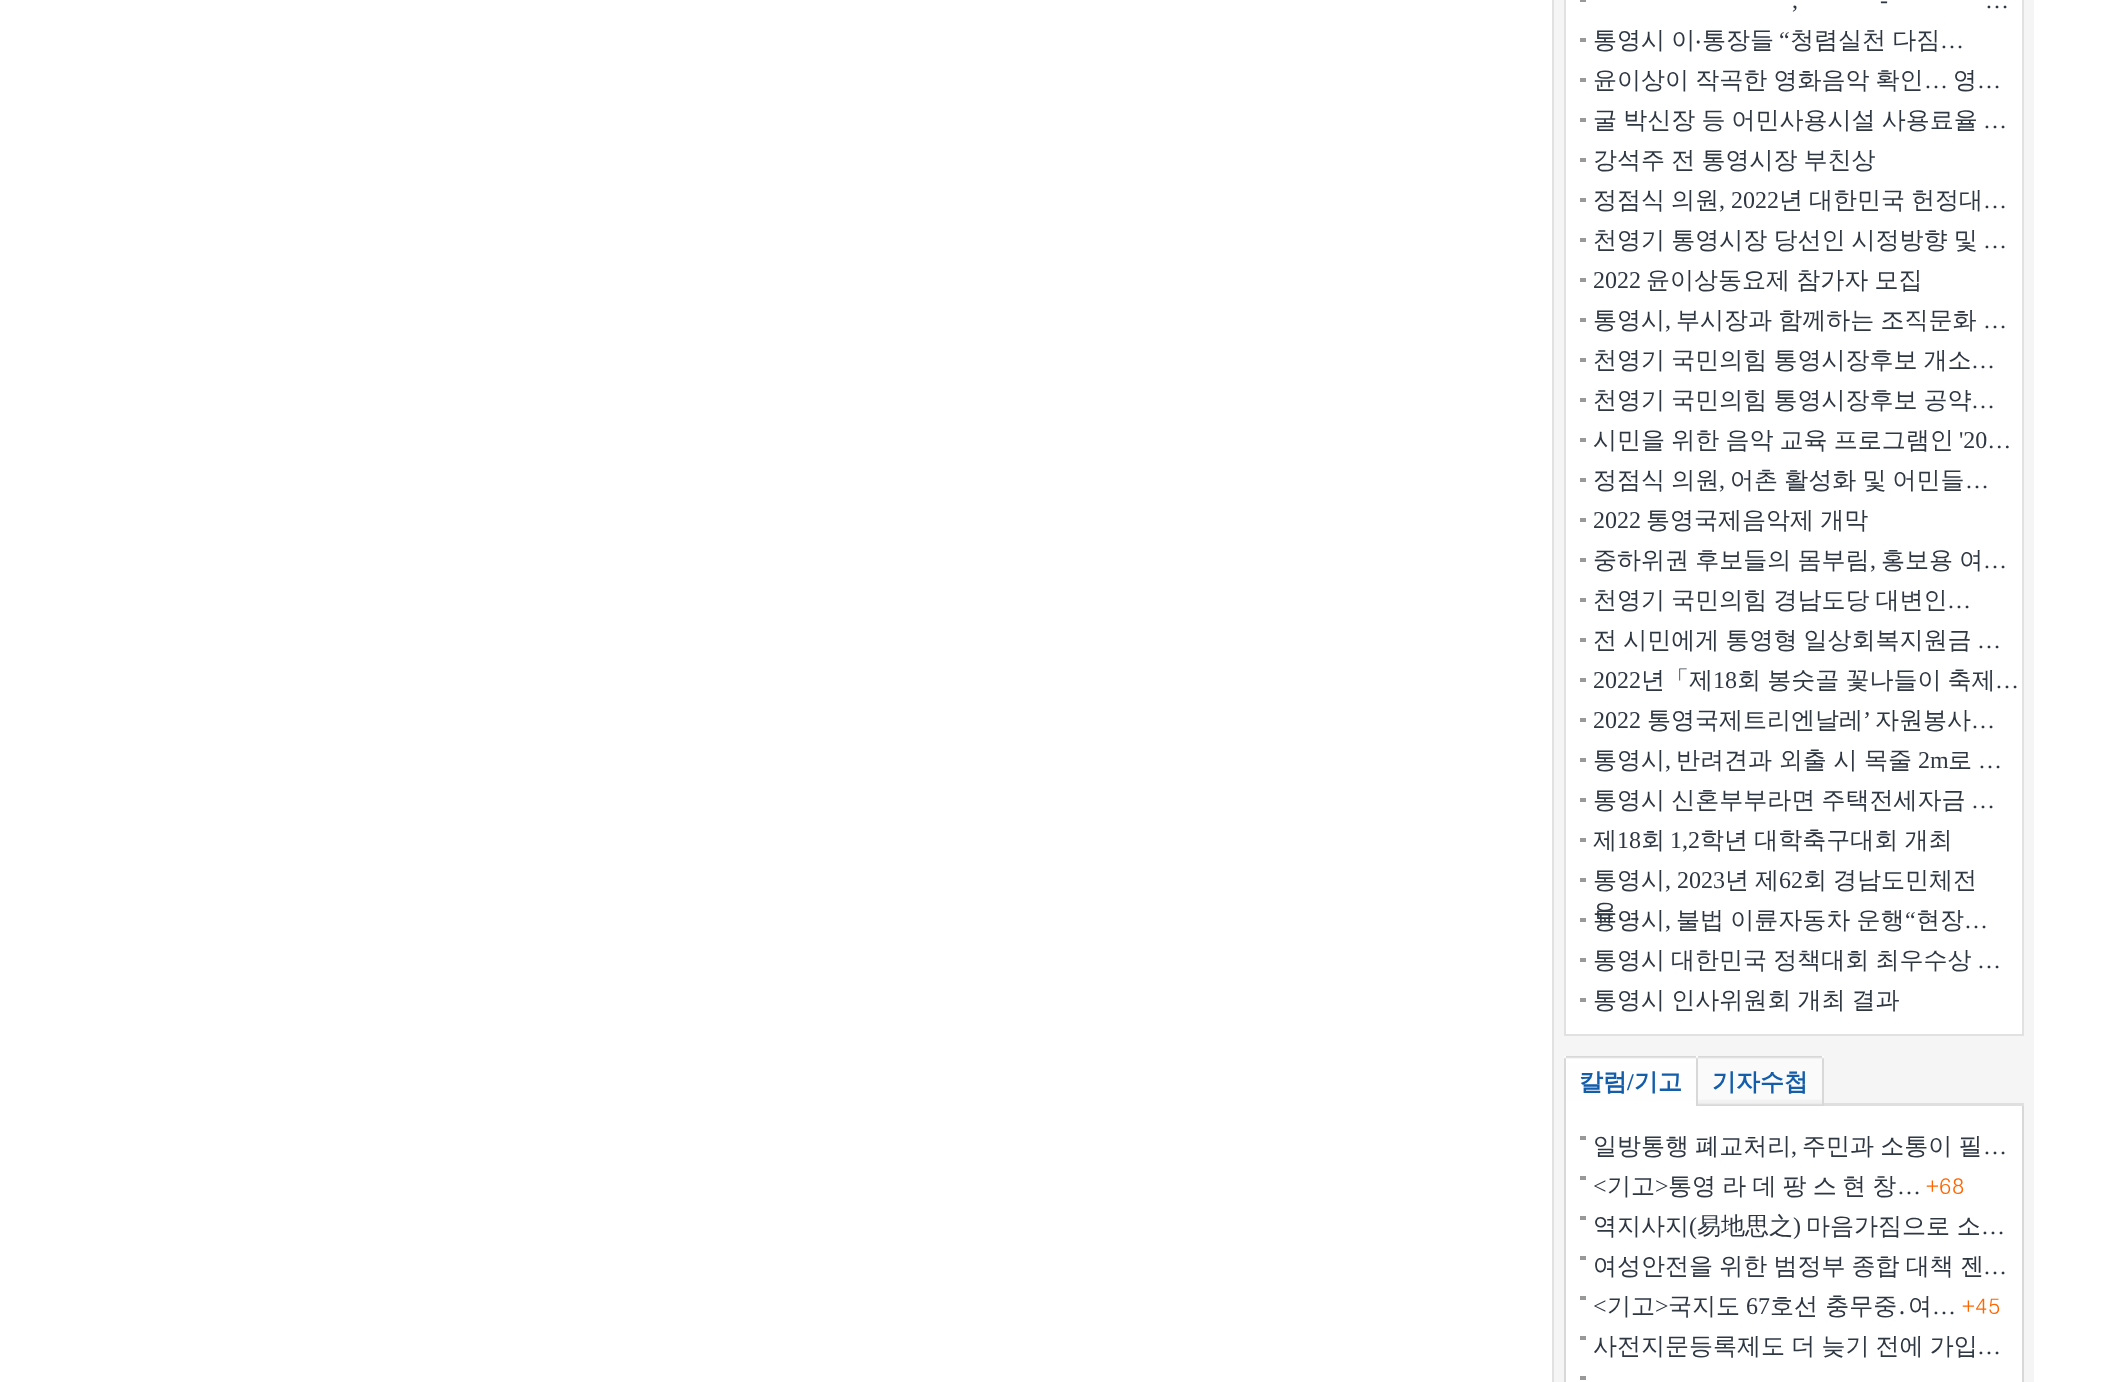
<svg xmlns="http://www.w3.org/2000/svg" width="2105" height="1382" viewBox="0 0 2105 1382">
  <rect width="100%" height="100%" fill="#ffffff"/>
  <rect x="1554" y="0" width="480" height="1382" fill="#f5f5f5"/>
  <rect x="1552" y="0" width="2" height="1382" fill="#e1e1e1"/>
  <rect x="1565" y="-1" width="458" height="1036" fill="#ffffff" stroke="#e1e1e1" stroke-width="2"/>
  <rect x="1580" y="0" width="6" height="2" fill="#999999"/>
  <text x="1880" y="8" font-family="Liberation Serif" font-size="24" fill="#2f3743">-</text>
  <text x="1792" y="8" font-family="Liberation Serif" font-size="24" fill="#2f3743">,</text>
  <text x="1985" y="8" font-family="Liberation Serif" font-size="24" fill="#2f3743">…</text>
  <rect x="1580" y="38" width="6" height="4" fill="#999999"/>
  <text x="1593" y="48" word-spacing="-1" font-family="WenQuanYi Zen Hei" font-size="24" font-weight="500" fill="#2f3743">통영시 이</text>
  <text x="1702" y="48" font-family="WenQuanYi Zen Hei" font-size="24" font-weight="500" fill="#2f3743">통장들</text>
  <text x="1779" y="48" font-family="Liberation Serif" font-size="24" fill="#2f3743">“</text>
  <text x="1790" y="48" word-spacing="-1" font-family="WenQuanYi Zen Hei" font-size="24" font-weight="500" fill="#2f3743">청렴실천 다짐</text>
  <text x="1695" y="48" font-family="Noto Sans" font-size="24" fill="#2f3743">‧</text>
  <text x="1940" y="48" font-family="Liberation Serif" font-size="24" fill="#2f3743">…</text>
  <rect x="1580" y="78" width="6" height="4" fill="#999999"/>
  <text x="1593" y="88" word-spacing="-1" font-family="WenQuanYi Zen Hei" font-size="24" font-weight="500" fill="#2f3743">윤이상이 작곡한 영화음악 확인</text>
  <text x="1924" y="88" font-family="Liberation Serif" font-size="24" fill="#2f3743">…</text>
  <text x="1953" y="88" font-family="WenQuanYi Zen Hei" font-size="24" font-weight="500" fill="#2f3743">영</text>
  <text x="1977" y="88" font-family="Liberation Serif" font-size="24" fill="#2f3743">…</text>
  <rect x="1580" y="118" width="6" height="4" fill="#999999"/>
  <text x="1593" y="128" word-spacing="-1" font-family="WenQuanYi Zen Hei" font-size="24" font-weight="500" fill="#2f3743">굴 박신장 등 어민사용시설 사용료율</text>
  <text x="1983" y="128" font-family="Liberation Serif" font-size="24" fill="#2f3743">…</text>
  <rect x="1580" y="158" width="6" height="4" fill="#999999"/>
  <text x="1593" y="168" word-spacing="-1" font-family="WenQuanYi Zen Hei" font-size="24" font-weight="500" fill="#2f3743">강석주 전 통영시장 부친상</text>
  <rect x="1580" y="198" width="6" height="4" fill="#999999"/>
  <text x="1593" y="208" font-family="WenQuanYi Zen Hei" font-size="24" font-weight="500" fill="#2f3743">정점식</text>
  <text x="1671" y="208" font-family="WenQuanYi Zen Hei" font-size="24" font-weight="500" fill="#2f3743">의원</text>
  <text x="1719" y="208" font-family="Liberation Serif" font-size="24" fill="#2f3743">, 2022</text>
  <text x="1779" y="208" font-family="WenQuanYi Zen Hei" font-size="24" font-weight="500" fill="#2f3743">년</text>
  <text x="1809" y="208" font-family="WenQuanYi Zen Hei" font-size="24" font-weight="500" fill="#2f3743">대한민국</text>
  <text x="1911" y="208" font-family="WenQuanYi Zen Hei" font-size="24" font-weight="500" fill="#2f3743">헌정대</text>
  <text x="1983" y="208" font-family="Liberation Serif" font-size="24" fill="#2f3743">…</text>
  <rect x="1580" y="238" width="6" height="4" fill="#999999"/>
  <text x="1593" y="248" word-spacing="-1" font-family="WenQuanYi Zen Hei" font-size="24" font-weight="500" fill="#2f3743">천영기 통영시장 당선인 시정방향 및</text>
  <text x="1983" y="248" font-family="Liberation Serif" font-size="24" fill="#2f3743">…</text>
  <rect x="1580" y="278" width="6" height="4" fill="#999999"/>
  <text x="1593" y="288" font-family="Liberation Serif" font-size="24" fill="#2f3743">2022</text>
  <text x="1646" y="288" word-spacing="-1" font-family="WenQuanYi Zen Hei" font-size="24" font-weight="500" fill="#2f3743">윤이상동요제 참가자 모집</text>
  <rect x="1580" y="318" width="6" height="4" fill="#999999"/>
  <text x="1593" y="328" font-family="WenQuanYi Zen Hei" font-size="24" font-weight="500" fill="#2f3743">통영시</text>
  <text x="1665" y="328" font-family="Liberation Serif" font-size="24" fill="#2f3743">,</text>
  <text x="1676" y="328" word-spacing="-1" font-family="WenQuanYi Zen Hei" font-size="24" font-weight="500" fill="#2f3743">부시장과 함께하는 조직문화</text>
  <text x="1983" y="328" font-family="Liberation Serif" font-size="24" fill="#2f3743">…</text>
  <rect x="1580" y="358" width="6" height="4" fill="#999999"/>
  <text x="1593" y="368" word-spacing="-1" font-family="WenQuanYi Zen Hei" font-size="24" font-weight="500" fill="#2f3743">천영기 국민의힘 통영시장후보 개소</text>
  <text x="1971" y="368" font-family="Liberation Serif" font-size="24" fill="#2f3743">…</text>
  <rect x="1580" y="398" width="6" height="4" fill="#999999"/>
  <text x="1593" y="408" word-spacing="-1" font-family="WenQuanYi Zen Hei" font-size="24" font-weight="500" fill="#2f3743">천영기 국민의힘 통영시장후보 공약</text>
  <text x="1971" y="408" font-family="Liberation Serif" font-size="24" fill="#2f3743">…</text>
  <rect x="1580" y="438" width="6" height="4" fill="#999999"/>
  <text x="1593" y="448" word-spacing="-1" font-family="WenQuanYi Zen Hei" font-size="24" font-weight="500" fill="#2f3743">시민을 위한 음악 교육 프로그램인</text>
  <text x="1959" y="448" font-family="Liberation Serif" font-size="24" fill="#2f3743">'20…</text>
  <rect x="1580" y="478" width="6" height="4" fill="#999999"/>
  <text x="1593" y="488" word-spacing="-1" font-family="WenQuanYi Zen Hei" font-size="24" font-weight="500" fill="#2f3743">정점식 의원</text>
  <text x="1719" y="488" font-family="Liberation Serif" font-size="24" fill="#2f3743">,</text>
  <text x="1730" y="488" word-spacing="-1" font-family="WenQuanYi Zen Hei" font-size="24" font-weight="500" fill="#2f3743">어촌 활성화 및 어민들</text>
  <text x="1965" y="488" font-family="Liberation Serif" font-size="24" fill="#2f3743">…</text>
  <rect x="1580" y="518" width="6" height="4" fill="#999999"/>
  <text x="1593" y="528" font-family="Liberation Serif" font-size="24" fill="#2f3743">2022</text>
  <text x="1646" y="528" word-spacing="-1" font-family="WenQuanYi Zen Hei" font-size="24" font-weight="500" fill="#2f3743">통영국제음악제 개막</text>
  <rect x="1580" y="558" width="6" height="4" fill="#999999"/>
  <text x="1593" y="568" word-spacing="-1" font-family="WenQuanYi Zen Hei" font-size="24" font-weight="500" fill="#2f3743">중하위권 후보들의 몸부림</text>
  <text x="1870" y="568" font-family="Liberation Serif" font-size="24" fill="#2f3743">,</text>
  <text x="1881" y="568" word-spacing="-1" font-family="WenQuanYi Zen Hei" font-size="24" font-weight="500" fill="#2f3743">홍보용 여</text>
  <text x="1983" y="568" font-family="Liberation Serif" font-size="24" fill="#2f3743">…</text>
  <rect x="1580" y="598" width="6" height="4" fill="#999999"/>
  <text x="1593" y="608" word-spacing="-1" font-family="WenQuanYi Zen Hei" font-size="24" font-weight="500" fill="#2f3743">천영기 국민의힘 경남도당 대변인</text>
  <text x="1947" y="608" font-family="Liberation Serif" font-size="24" fill="#2f3743">…</text>
  <rect x="1580" y="638" width="6" height="4" fill="#999999"/>
  <text x="1593" y="648" word-spacing="-1" font-family="WenQuanYi Zen Hei" font-size="24" font-weight="500" fill="#2f3743">전 시민에게 통영형 일상회복지원금</text>
  <text x="1977" y="648" font-family="Liberation Serif" font-size="24" fill="#2f3743">…</text>
  <rect x="1580" y="678" width="6" height="4" fill="#999999"/>
  <text x="1593" y="688" font-family="Liberation Serif" font-size="24" fill="#2f3743">2022</text>
  <text x="1641" y="688" font-family="WenQuanYi Zen Hei" font-size="24" font-weight="500" fill="#2f3743">년「제</text>
  <text x="1713" y="688" font-family="Liberation Serif" font-size="24" fill="#2f3743">18</text>
  <text x="1737" y="688" word-spacing="-1" font-family="WenQuanYi Zen Hei" font-size="24" font-weight="500" fill="#2f3743">회 봉숫골 꽃나들이 축제</text>
  <text x="1995" y="688" font-family="Liberation Serif" font-size="24" fill="#2f3743">…</text>
  <rect x="1580" y="718" width="6" height="4" fill="#999999"/>
  <text x="1593" y="728" font-family="Liberation Serif" font-size="24" fill="#2f3743">2022</text>
  <text x="1647" y="728" font-family="WenQuanYi Zen Hei" font-size="24" font-weight="500" fill="#2f3743">통영국제트리엔날레</text>
  <text x="1863" y="728" font-family="Liberation Serif" font-size="24" fill="#2f3743">’</text>
  <text x="1875" y="728" font-family="WenQuanYi Zen Hei" font-size="24" font-weight="500" fill="#2f3743">자원봉사</text>
  <text x="1971" y="728" font-family="Liberation Serif" font-size="24" fill="#2f3743">…</text>
  <rect x="1580" y="758" width="6" height="4" fill="#999999"/>
  <text x="1593" y="768" font-family="WenQuanYi Zen Hei" font-size="24" font-weight="500" fill="#2f3743">통영시</text>
  <text x="1665" y="768" font-family="Liberation Serif" font-size="24" fill="#2f3743">,</text>
  <text x="1676" y="768" word-spacing="-0.5" font-family="WenQuanYi Zen Hei" font-size="24" font-weight="500" fill="#2f3743">반려견과 외출 시 목줄</text>
  <text x="1918" y="768" font-family="Liberation Serif" font-size="24" fill="#2f3743">2m</text>
  <text x="1948" y="768" font-family="WenQuanYi Zen Hei" font-size="24" font-weight="500" fill="#2f3743">로</text>
  <text x="1978" y="768" font-family="Liberation Serif" font-size="24" fill="#2f3743">…</text>
  <rect x="1580" y="798" width="6" height="4" fill="#999999"/>
  <text x="1593" y="808" word-spacing="-1" font-family="WenQuanYi Zen Hei" font-size="24" font-weight="500" fill="#2f3743">통영시 신혼부부라면 주택전세자금</text>
  <text x="1971" y="808" font-family="Liberation Serif" font-size="24" fill="#2f3743">…</text>
  <rect x="1580" y="838" width="6" height="4" fill="#999999"/>
  <text x="1593" y="848" font-family="WenQuanYi Zen Hei" font-size="24" font-weight="500" fill="#2f3743">제</text>
  <text x="1617" y="848" font-family="Liberation Serif" font-size="24" fill="#2f3743">18</text>
  <text x="1641" y="848" font-family="WenQuanYi Zen Hei" font-size="24" font-weight="500" fill="#2f3743">회</text>
  <text x="1670" y="848" font-family="Liberation Serif" font-size="24" fill="#2f3743">1,2</text>
  <text x="1700" y="848" word-spacing="-1" font-family="WenQuanYi Zen Hei" font-size="24" font-weight="500" fill="#2f3743">학년 대학축구대회 개최</text>
  <rect x="1580" y="878" width="6" height="4" fill="#999999"/>
  <text x="1593" y="888" font-family="WenQuanYi Zen Hei" font-size="24" font-weight="500" fill="#2f3743">통영시</text>
  <text x="1665" y="888" font-family="Liberation Serif" font-size="24" fill="#2f3743">, 2023</text>
  <text x="1725" y="888" font-family="WenQuanYi Zen Hei" font-size="24" font-weight="500" fill="#2f3743">년</text>
  <text x="1755" y="888" font-family="WenQuanYi Zen Hei" font-size="24" font-weight="500" fill="#2f3743">제</text>
  <text x="1779" y="888" font-family="Liberation Serif" font-size="24" fill="#2f3743">62</text>
  <text x="1803" y="888" font-family="WenQuanYi Zen Hei" font-size="24" font-weight="500" fill="#2f3743">회</text>
  <text x="1833" y="888" font-family="WenQuanYi Zen Hei" font-size="24" font-weight="500" fill="#2f3743">경남도민체전</text>
  <text x="1593" y="920" font-family="WenQuanYi Zen Hei" font-size="24" font-weight="500" fill="#2f3743">유</text>
  <text x="1617" y="920" font-family="Liberation Serif" font-size="24" fill="#2f3743">…</text>
  <rect x="1580" y="918" width="6" height="4" fill="#999999"/>
  <text x="1593" y="928" font-family="WenQuanYi Zen Hei" font-size="24" font-weight="500" fill="#2f3743">통영시</text>
  <text x="1676" y="928" word-spacing="-1" font-family="WenQuanYi Zen Hei" font-size="24" font-weight="500" fill="#2f3743">불법 이륜자동차 운행</text>
  <text x="1905" y="928" font-family="Liberation Serif" font-size="24" fill="#2f3743">“</text>
  <text x="1916" y="928" font-family="WenQuanYi Zen Hei" font-size="24" font-weight="500" fill="#2f3743">현장</text>
  <text x="1665" y="928" font-family="Liberation Serif" font-size="24" fill="#2f3743">,</text>
  <text x="1964" y="928" font-family="Liberation Serif" font-size="24" fill="#2f3743">…</text>
  <rect x="1580" y="958" width="6" height="4" fill="#999999"/>
  <text x="1593" y="968" font-family="WenQuanYi Zen Hei" font-size="24" font-weight="500" fill="#2f3743">통영시</text>
  <text x="1671" y="968" word-spacing="-1" font-family="WenQuanYi Zen Hei" font-size="24" font-weight="500" fill="#2f3743">대한민국 정책대회 최우수상</text>
  <text x="1977" y="968" font-family="Liberation Serif" font-size="24" fill="#2f3743">…</text>
  <rect x="1580" y="998" width="6" height="4" fill="#999999"/>
  <text x="1593" y="1008" word-spacing="-1" font-family="WenQuanYi Zen Hei" font-size="24" font-weight="500" fill="#2f3743">통영시 인사위원회 개최 결과</text>
  <rect x="1824" y="1103" width="200" height="3" fill="#dfdfdf"/>
  <image x="1564" y="1056" width="2" height="50" href="img1.png"/>
  <image x="1566" y="1056" width="130" height="50" href="img2.png"/>
  <text x="1579" y="1090" font-family="WenQuanYi Zen Hei" font-size="24" font-weight="bold" fill="#145daa">칼럼</text>
  <text x="1627" y="1090" font-family="Liberation Serif" font-size="24" font-weight="bold" fill="#145daa">/</text>
  <text x="1634" y="1090" font-family="WenQuanYi Zen Hei" font-size="24" font-weight="bold" fill="#145daa">기고</text>
  <image x="1696" y="1056" width="2" height="50" href="img1.png"/>
  <image x="1698" y="1056" width="124" height="50" href="img3.png"/>
  <text x="1712" y="1090" font-family="WenQuanYi Zen Hei" font-size="24" font-weight="bold" fill="#145daa">기자수첩</text>
  <image x="1822" y="1056" width="2" height="50" href="img1.png"/>
  <rect x="1566" y="1106" width="456" height="276" fill="#ffffff"/>
  <rect x="2022" y="1106" width="2" height="276" fill="#d8d8d8"/>
  <rect x="1564" y="1106" width="2" height="276" fill="#d8d8d8"/>
  <rect x="1580" y="1136" width="6" height="4" fill="#999999"/>
  <text x="1593" y="1154" word-spacing="-1" font-family="WenQuanYi Zen Hei" font-size="24" font-weight="500" fill="#2f3743">일방통행 폐교처리</text>
  <text x="1791" y="1154" font-family="Liberation Serif" font-size="24" fill="#2f3743">,</text>
  <text x="1802" y="1154" word-spacing="-1" font-family="WenQuanYi Zen Hei" font-size="24" font-weight="500" fill="#2f3743">주민과 소통이 필</text>
  <text x="1983" y="1154" font-family="Liberation Serif" font-size="24" fill="#2f3743">…</text>
  <rect x="1580" y="1176" width="6" height="4" fill="#999999"/>
  <text x="1593" y="1194" font-family="Liberation Serif" font-size="24" fill="#2f3743">&lt;</text>
  <text x="1607" y="1194" font-family="WenQuanYi Zen Hei" font-size="24" font-weight="500" fill="#2f3743">기고</text>
  <text x="1655" y="1194" font-family="Liberation Serif" font-size="24" fill="#2f3743">&gt;</text>
  <text x="1668" y="1194" word-spacing="-1" font-family="WenQuanYi Zen Hei" font-size="24" font-weight="500" fill="#2f3743">통영 라 데 팡 스</text>
  <text x="1842" y="1194" word-spacing="-1" font-family="WenQuanYi Zen Hei" font-size="24" font-weight="500" fill="#2f3743">현 창</text>
  <text x="1926" y="1194" font-family="Dotum" font-size="22" fill="#ff6600">+68</text>
  <text x="1897" y="1194" font-family="Liberation Serif" font-size="24" fill="#2f3743">…</text>
  <rect x="1580" y="1216" width="6" height="4" fill="#999999"/>
  <text x="1593" y="1234" font-family="WenQuanYi Zen Hei" font-size="24" font-weight="500" fill="#2f3743">역지사지</text>
  <text x="1689" y="1234" font-family="Liberation Serif" font-size="24" fill="#2f3743">(</text>
  <text x="1697" y="1234" font-family="WenQuanYi Zen Hei" font-size="24" font-weight="500" fill="#2f3743">易地思之</text>
  <text x="1793" y="1234" font-family="Liberation Serif" font-size="24" fill="#2f3743">)</text>
  <text x="1806" y="1234" word-spacing="-0.5" font-family="WenQuanYi Zen Hei" font-size="24" font-weight="500" fill="#2f3743">마음가짐으로 소</text>
  <text x="1981" y="1234" font-family="Liberation Serif" font-size="24" fill="#2f3743">…</text>
  <rect x="1580" y="1256" width="6" height="4" fill="#999999"/>
  <text x="1593" y="1274" word-spacing="-1" font-family="WenQuanYi Zen Hei" font-size="24" font-weight="500" fill="#2f3743">여성안전을 위한 범정부 종합 대책 젠</text>
  <text x="1983" y="1274" font-family="Liberation Serif" font-size="24" fill="#2f3743">…</text>
  <rect x="1580" y="1296" width="6" height="4" fill="#999999"/>
  <text x="1593" y="1314" font-family="Liberation Serif" font-size="24" fill="#2f3743">&lt;</text>
  <text x="1607" y="1314" font-family="WenQuanYi Zen Hei" font-size="24" font-weight="500" fill="#2f3743">기고</text>
  <text x="1655" y="1314" font-family="Liberation Serif" font-size="24" fill="#2f3743">&gt;</text>
  <text x="1668" y="1314" font-family="WenQuanYi Zen Hei" font-size="24" font-weight="500" fill="#2f3743">국지도</text>
  <text x="1746" y="1314" font-family="Liberation Serif" font-size="24" fill="#2f3743">67</text>
  <text x="1770" y="1314" font-family="WenQuanYi Zen Hei" font-size="24" font-weight="500" fill="#2f3743">호선 충무중</text>
  <text x="1908" y="1314" font-family="WenQuanYi Zen Hei" font-size="24" font-weight="500" fill="#2f3743">여</text>
  <text x="1962" y="1314" font-family="Dotum" font-size="22" fill="#ff6600">+45</text>
  <text x="1896" y="1314" font-family="Noto Sans" font-size="24" fill="#2f3743">․</text>
  <text x="1932" y="1314" font-family="Liberation Serif" font-size="24" fill="#2f3743">…</text>
  <rect x="1580" y="1336" width="6" height="4" fill="#999999"/>
  <text x="1593" y="1354" word-spacing="-1" font-family="WenQuanYi Zen Hei" font-size="24" font-weight="500" fill="#2f3743">사전지문등록제도 더 늦기 전에 가입</text>
  <text x="1977" y="1354" font-family="Liberation Serif" font-size="24" fill="#2f3743">…</text>
  <rect x="1580" y="1376" width="6" height="4" fill="#999999"/>
</svg>
